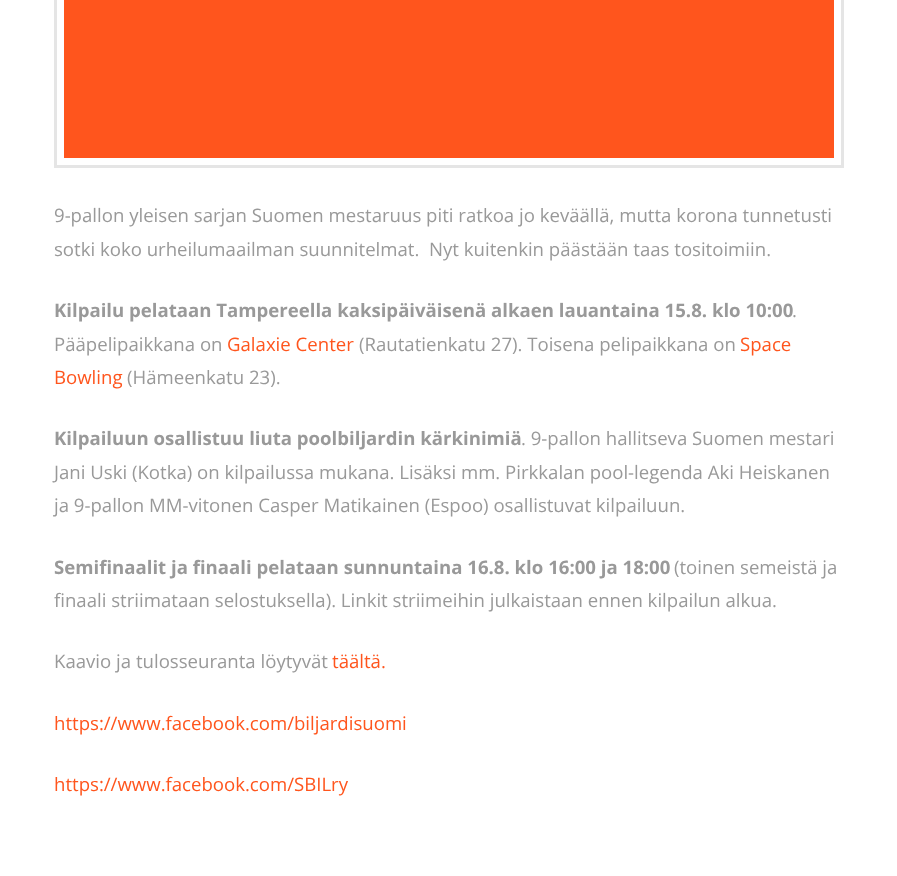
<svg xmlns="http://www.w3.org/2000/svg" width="897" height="876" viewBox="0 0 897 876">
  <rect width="100%" height="100%" fill="#ffffff"/>
  <rect x="55.5" y="-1.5" width="787" height="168" fill="none" stroke="#e5e5e5" stroke-width="3"/>
  <rect x="64" y="0" width="770" height="158" fill="#ff551d"/>
  <text x="54" y="222" font-family="Open Sans" font-size="18.6" fill="#999999">9-pallon yleisen sarjan Suomen mestaruus piti ratkoa jo keväällä, mutta korona tunnetusti</text>
  <text x="54" y="256" font-family="Open Sans" font-size="18.6" fill="#999999" xml:space="preserve">sotki koko urheilumaailman suunnitelmat.  Nyt kuitenkin päästään taas tositoimiin.</text>
  <text x="54" y="317" font-family="Open Sans" font-size="18.6" font-weight="bold" fill="#999999">Kilpailu pelataan Tampereella kaksipäiväisenä alkaen lauantaina 15.8. klo 10:00</text>
  <text x="792" y="317" font-family="Open Sans" font-size="18.6" fill="#999999">.</text>
  <text x="54" y="351" font-family="Open Sans" font-size="18.6" fill="#999999">Pääpelipaikkana on</text>
  <text x="227" y="351" font-family="Open Sans" font-size="18.6" fill="#ff551d">Galaxie Center</text>
  <text x="359" y="351" font-family="Open Sans" font-size="18.6" fill="#999999">(Rautatienkatu 27). Toisena pelipaikkana on</text>
  <text x="740" y="351" font-family="Open Sans" font-size="18.6" fill="#ff551d">Space</text>
  <text x="54" y="384" font-family="Open Sans" font-size="18.6" fill="#ff551d">Bowling</text>
  <text x="127" y="384" font-family="Open Sans" font-size="18.6" fill="#999999">(Hämeenkatu 23).</text>
  <text x="54" y="445" font-family="Open Sans" font-size="18.6" font-weight="bold" fill="#999999">Kilpailuun osallistuu liuta poolbiljardin kärkinimiä</text>
  <text x="521" y="445" font-family="Open Sans" font-size="18.6" fill="#999999">. 9-pallon hallitseva Suomen mestari</text>
  <text x="54" y="479" font-family="Open Sans" font-size="18.6" fill="#999999">Jani Uski (Kotka) on kilpailussa mukana. Lisäksi mm. Pirkkalan pool-legenda Aki Heiskanen</text>
  <text x="54" y="512" font-family="Open Sans" font-size="18.6" fill="#999999">ja 9-pallon MM-vitonen Casper Matikainen (Espoo) osallistuvat kilpailuun.</text>
  <text x="54" y="574" font-family="Open Sans" font-size="18.6" font-weight="bold" fill="#999999">Semifinaalit ja finaali pelataan sunnuntaina 16.8. klo 16:00 ja 18:00</text>
  <text x="674" y="574" font-family="Open Sans" font-size="18.6" fill="#999999">(toinen semeistä ja</text>
  <text x="54" y="607" font-family="Open Sans" font-size="18.6" fill="#999999">finaali striimataan selostuksella). Linkit striimeihin julkaistaan ennen kilpailun alkua.</text>
  <text x="54" y="668" font-family="Open Sans" font-size="18.6" fill="#999999">Kaavio ja tulosseuranta löytyvät</text>
  <text x="332" y="668" font-family="Open Sans" font-size="18.6" fill="#ff551d">täältä.</text>
  <text x="54" y="730" font-family="Open Sans" font-size="18.6" fill="#ff551d">https://www.facebook.com/biljardisuomi</text>
  <text x="54" y="791" font-family="Open Sans" font-size="18.6" fill="#ff551d">https://www.facebook.com/SBILry</text>
</svg>
